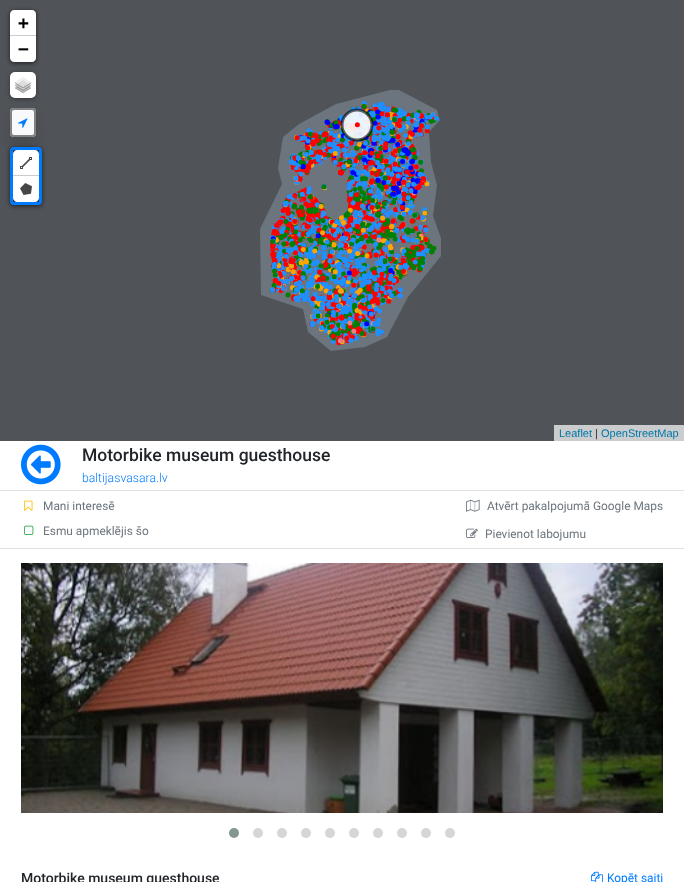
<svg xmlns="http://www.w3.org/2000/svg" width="684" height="882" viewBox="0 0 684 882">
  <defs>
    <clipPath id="clip1"><rect x="0" y="0" width="684" height="441"/></clipPath>
    <filter id="blur1" x="-50%" y="-200%" width="200%" height="500%"><feGaussianBlur stdDeviation="2.5"/></filter>
    <filter id="blur2" x="-50%" y="-200%" width="200%" height="500%"><feGaussianBlur stdDeviation="7"/></filter>
  </defs>
  <rect width="100%" height="100%" fill="#ffffff"/>
  <rect x="0" y="0" width="684" height="441" fill="#6c757d"/>
  <image x="269" y="101" width="171" height="245" href="img1.png"/>
  <g clip-path="url(#clip1)">
    <path d="M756 488H-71V-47H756ZM299 124L283 137L278 168L282 184L260 229L261 295L303 309L308 332L331 351L365 347L387 337L408 297L441 256V238L433 216L437 185L431 162L429 132L440 120L437 110L399 90H390L336 104Z" fill="#333333" fill-opacity="0.5" fill-rule="evenodd"/>
  </g>
  <rect x="10" y="11" width="26" height="52" rx="4" fill="#000000" fill-opacity="0.65" filter="url(#blur1)"/>
  <path d="M14 10H32C34 10 36 12 36 14V36H10V14C10 12 12 10 14 10Z" fill="#ffffff"/>
  <rect x="10" y="35" width="26" height="1" fill="#cccccc"/>
  <text x="18" y="29" font-family="DejaVu Sans Mono" font-size="18" font-weight="bold" fill="#000000">+</text>
  <path d="M10 36H36V58C36 60 34 62 32 62H14C12 62 10 60 10 58Z" fill="#ffffff"/>
  <text x="18" y="55" font-family="DejaVu Sans Mono" font-size="18" font-weight="bold" fill="#000000">−</text>
  <rect x="10" y="73" width="26" height="26" rx="5" fill="#000000" fill-opacity="0.4" filter="url(#blur1)"/>
  <rect x="10" y="72" width="26" height="26" rx="5" fill="#ffffff"/>
  <image x="15" y="77" width="16" height="16" href="img2.png"/>
  <rect x="10" y="115" width="26" height="29" rx="4" fill="#000000" fill-opacity="0.15" filter="url(#blur2)"/>
  <rect x="10" y="108" width="26" height="29" rx="4" fill="#f8f9fa"/>
  <rect x="11" y="109" width="24" height="27" rx="3" fill="none" stroke="#646464" stroke-opacity="0.8" stroke-width="2"/>
  <image x="18" y="118" width="10" height="10" href="img3.png"/>
  <rect x="10" y="148" width="32" height="58" rx="4" fill="#000000" fill-opacity="0.65" filter="url(#blur1)"/>
  <rect x="11.5" y="148.5" width="29" height="55" rx="2.5" fill="none" stroke="#007bff" stroke-width="3"/>
  <path d="M17 150H35C37 150 39 152 39 154V175H13V154C13 152 15 150 17 150Z" fill="#ffffff"/>
  <image x="20" y="157" width="12" height="12" href="img4.png"/>
  <rect x="13" y="175" width="26" height="1" fill="#cccccc"/>
  <path d="M13 176H39V198C39 200 37 202 35 202H17C15 202 13 200 13 198Z" fill="#ffffff"/>
  <image x="20" y="183" width="12" height="12" href="img5.png"/>
  <rect x="554" y="425" width="130" height="16" fill="#cacccd"/>
  <text x="559" y="437" font-family="Liberation Sans" font-size="11" fill="#0078a8">Leaflet</text>
  <text x="595" y="437" font-family="Liberation Sans" font-size="11" fill="#333333">|</text>
  <text x="601" y="437" font-family="Liberation Sans" font-size="11" fill="#0078a8">OpenStreetMap</text>
  <rect x="0" y="490" width="684" height="1" fill="#dee2e6"/>
  <image x="21" y="444" width="40" height="41" href="img6.png"/>
  <text x="82" y="461" font-family="Roboto" font-size="17.5" font-weight="500" fill="#212529">Motorbike museum guesthouse</text>
  <text x="82" y="482" font-family="Roboto" font-size="12.25" font-weight="300" fill="#007bff">baltijasvasara.lv</text>
  <rect x="0" y="548" width="684" height="1" fill="#dee2e6"/>
  <image x="24" y="500" width="9" height="11" href="img7.png"/>
  <text x="43" y="510" font-family="Roboto" font-size="11.9" fill="#6c757d">Mani interesē</text>
  <image x="24" y="525" width="10" height="10" href="img8.png"/>
  <text x="43" y="535" font-family="Roboto" font-size="11.9" fill="#6c757d">Esmu apmeklējis šo</text>
  <image x="466" y="499" width="14" height="13" href="img9.png"/>
  <text x="487" y="510" font-family="Roboto" font-size="11.9" fill="#6c757d">Atvērt pakalpojumā Google Maps</text>
  <image x="466" y="528" width="12" height="10" href="img10.png"/>
  <text x="485" y="538" font-family="Roboto" font-size="11.9" fill="#6c757d">Pievienot labojumu</text>
  <image x="21" y="563" width="642" height="250" href="img11.png"/>
  <image x="21" y="563" width="642" height="250" href="img12.png"/>
  <circle cx="234" cy="833" r="5" fill="#869791"/>
  <circle cx="258" cy="833" r="5" fill="#d6d6d6"/>
  <circle cx="282" cy="833" r="5" fill="#d6d6d6"/>
  <circle cx="306" cy="833" r="5" fill="#d6d6d6"/>
  <circle cx="330" cy="833" r="5" fill="#d6d6d6"/>
  <circle cx="354" cy="833" r="5" fill="#d6d6d6"/>
  <circle cx="378" cy="833" r="5" fill="#d6d6d6"/>
  <circle cx="402" cy="833" r="5" fill="#d6d6d6"/>
  <circle cx="426" cy="833" r="5" fill="#d6d6d6"/>
  <circle cx="450" cy="833" r="5" fill="#d6d6d6"/>
  <text x="21" y="883" font-family="Roboto" font-size="14" font-weight="500" fill="#212529">Motorbike museum guesthouse</text>
  <image x="591" y="871" width="12" height="11" href="img13.png"/>
  <text x="607" y="882" font-family="Roboto" font-size="11.9" fill="#007bff">Kopēt saiti</text>
</svg>
